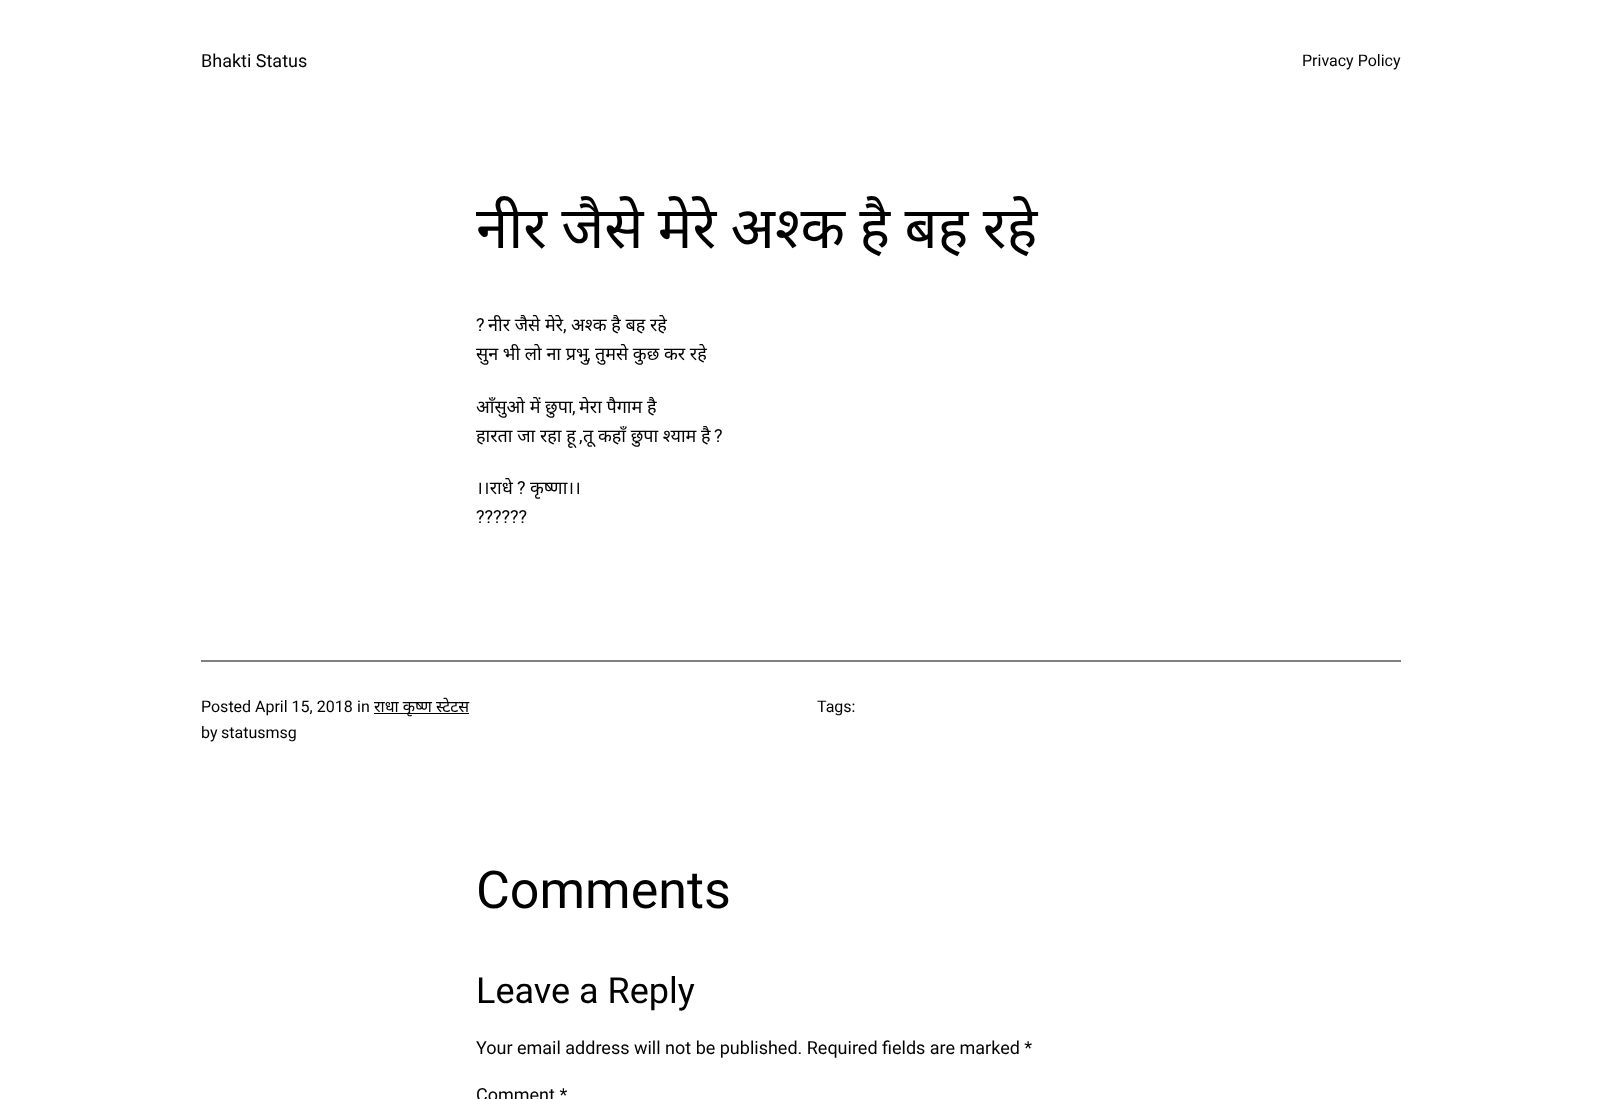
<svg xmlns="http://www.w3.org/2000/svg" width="1601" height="1099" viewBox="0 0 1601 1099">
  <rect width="100%" height="100%" fill="#ffffff"/>
  <text x="201" y="67" font-family="Roboto" font-size="18" fill="#000000">Bhakti Status</text>
  <text x="1302" y="66" font-family="Roboto" font-size="16" fill="#000000">Privacy Policy</text>
  <text x="476" y="248" word-spacing="-0.75" font-family="Noto Sans" font-size="58" fill="#000000">नीर जैसे मेरे अश्क है बह रहे</text>
  <text x="476" y="331" font-family="Roboto" font-size="18" fill="#000000">?</text>
  <text x="488" y="331" font-family="Noto Sans" font-size="18" fill="#000000">नीर जैसे मेरे</text>
  <text x="563" y="331" font-family="Roboto" font-size="18" fill="#000000">,</text>
  <text x="571" y="331" font-family="Noto Sans" font-size="18" fill="#000000">अश्क है बह रहे</text>
  <text x="476" y="360" font-family="Noto Sans" font-size="18" fill="#000000">सुन भी लो ना प्रभु</text>
  <text x="587" y="360" font-family="Roboto" font-size="18" fill="#000000">,</text>
  <text x="595" y="360" font-family="Noto Sans" font-size="18" fill="#000000">तुमसे कुछ कर रहे</text>
  <text x="476" y="413" font-family="Noto Sans" font-size="18" fill="#000000">आँसुओ में छुपा</text>
  <text x="572" y="413" font-family="Roboto" font-size="18" fill="#000000">,</text>
  <text x="579" y="413" font-family="Noto Sans" font-size="18" fill="#000000">मेरा पैगाम है</text>
  <text x="476" y="442" font-family="Noto Sans" font-size="18" fill="#000000">हारता जा रहा हू</text>
  <text x="579" y="442" font-family="Roboto" font-size="18" fill="#000000">,</text>
  <text x="583" y="442" font-family="Noto Sans" font-size="18" fill="#000000">तू कहाँ छुपा श्याम है</text>
  <text x="714" y="442" font-family="Roboto" font-size="18" fill="#000000">?</text>
  <text x="476" y="494" font-family="Noto Sans" font-size="18" fill="#000000">।।राधे</text>
  <text x="517" y="494" font-family="Roboto" font-size="18" fill="#000000">?</text>
  <text x="530" y="494" font-family="Noto Sans" font-size="18" fill="#000000">कृष्णा।।</text>
  <text x="476" y="523" font-family="Roboto" font-size="18" fill="#000000">??????</text>
  <rect x="201" y="660" width="1200" height="2" fill="#808080"/>
  <text x="201" y="712" font-family="Roboto" font-size="16" fill="#000000">Posted</text>
  <text x="255" y="712" font-family="Roboto" font-size="16" fill="#000000">April 15, 2018</text>
  <text x="357" y="712" font-family="Roboto" font-size="16" fill="#000000">in</text>
  <rect x="374" y="713" width="95" height="1" fill="#000000"/>
  <text x="374" y="712" font-family="Noto Sans" font-size="16" fill="#000000">राधा कृष्ण स्टेटस</text>
  <text x="201" y="738" font-family="Roboto" font-size="16" fill="#000000">by</text>
  <text x="221" y="738" font-family="Roboto" font-size="16" fill="#000000">statusmsg</text>
  <text x="817" y="712" font-family="Roboto" font-size="16" fill="#000000">Tags:</text>
  <text x="476" y="908" font-family="Roboto" font-size="52" fill="#000000">Comments</text>
  <text x="476" y="1003" font-family="Roboto" font-size="36" fill="#000000">Leave a Reply</text>
  <text x="476" y="1054" font-family="Roboto" font-size="18" fill="#000000">Your email address will not be published. Required fields are marked *</text>
  <text x="476" y="1101" font-family="Roboto" font-size="18" fill="#000000">Comment *</text>
</svg>
